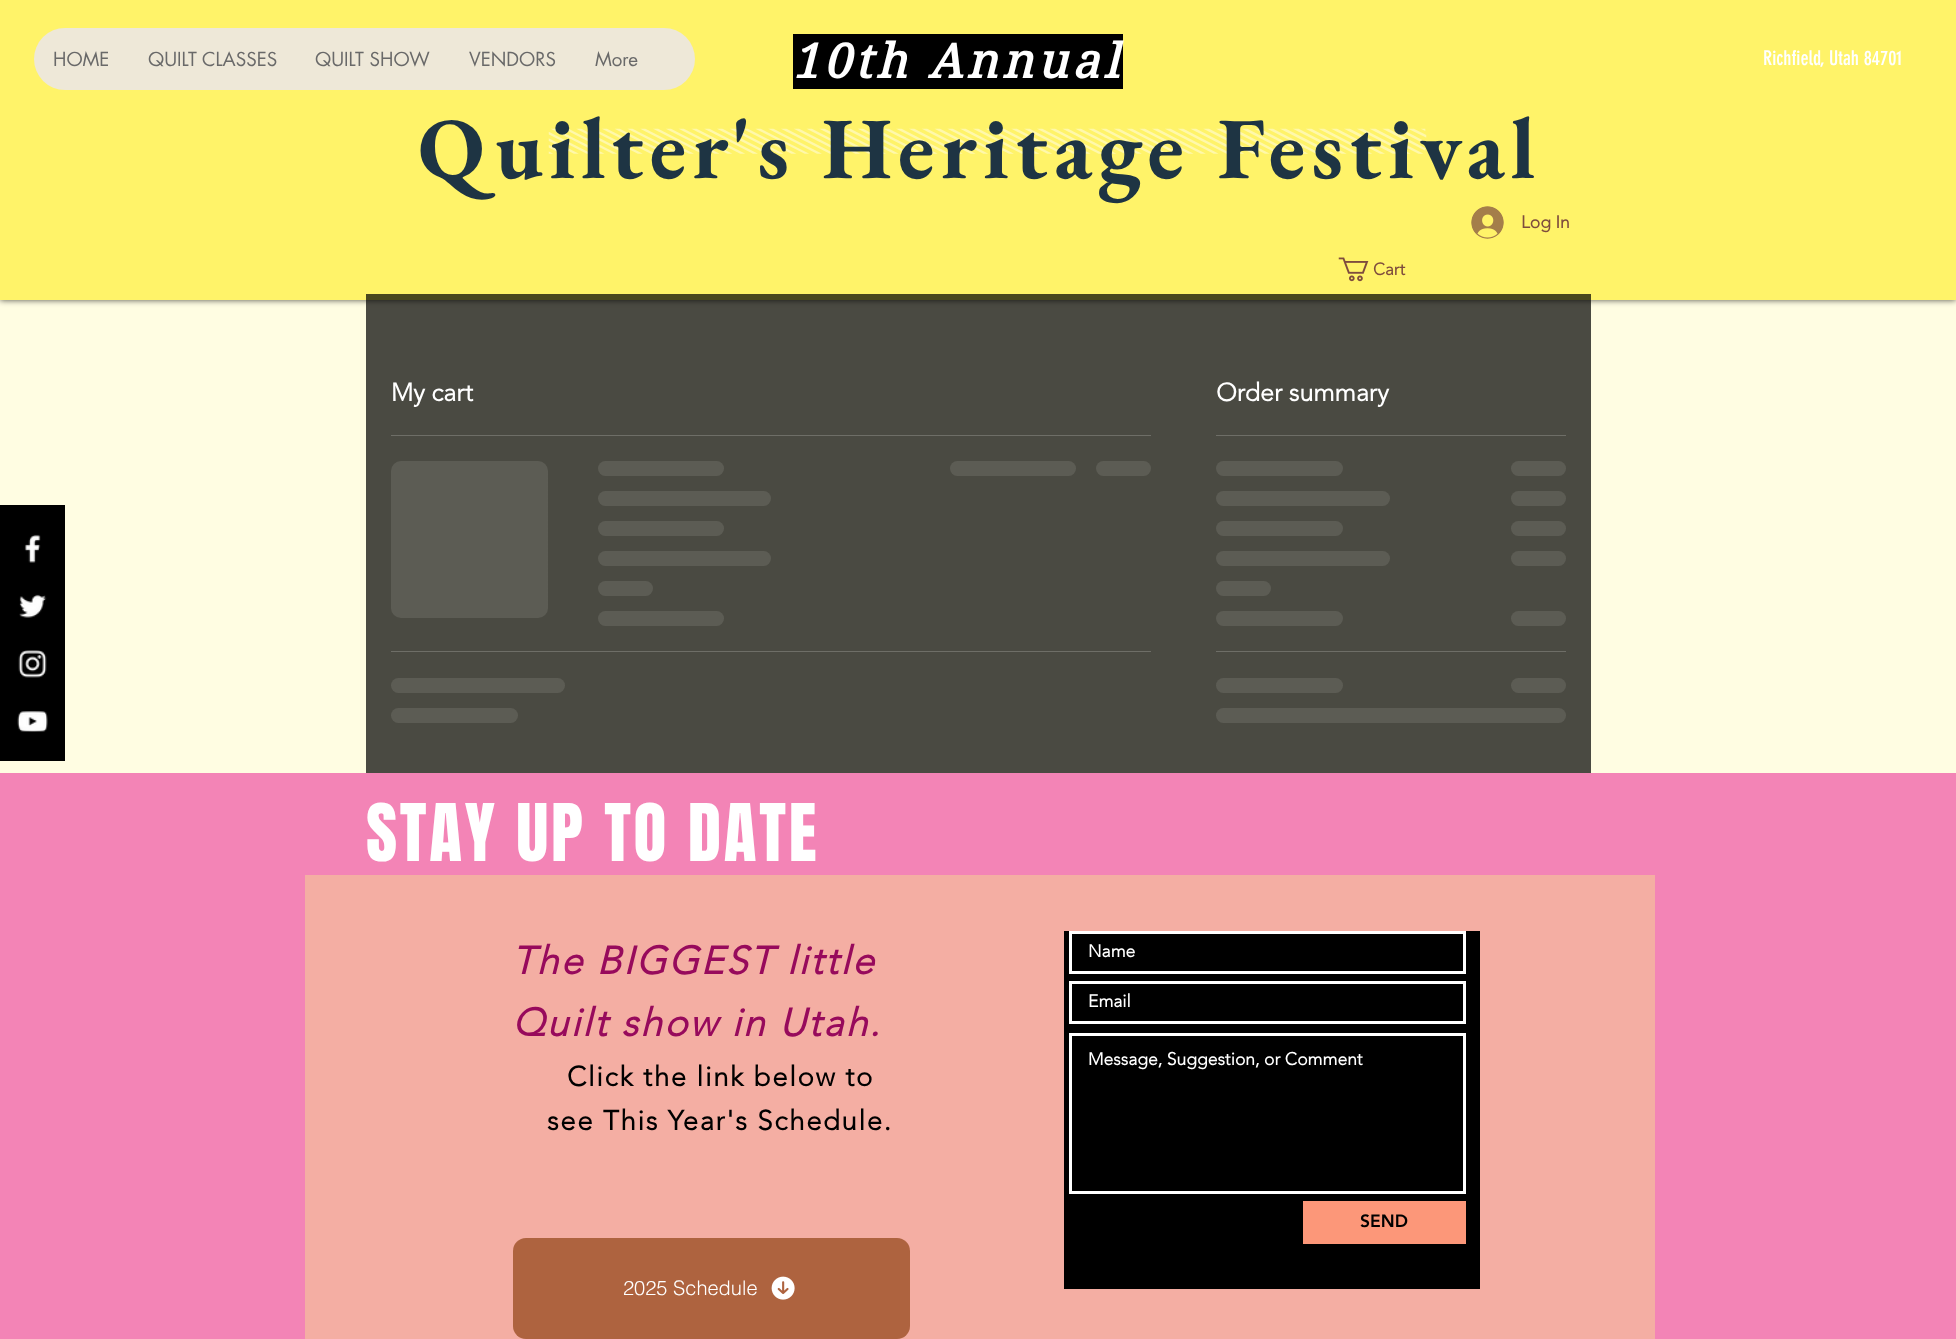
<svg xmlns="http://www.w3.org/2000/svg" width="1956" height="1339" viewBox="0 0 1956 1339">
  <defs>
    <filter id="blur1" x="-50%" y="-200%" width="200%" height="500%"><feGaussianBlur stdDeviation="3"/></filter>
    <linearGradient id="g1" gradientUnits="userSpaceOnUse" x1="391" y1="539" x2="1016" y2="539"><stop offset="0.25" stop-color="#5c5c54"/><stop offset="0.37" stop-color="#6e6e67"/><stop offset="0.63" stop-color="#5c5c54"/></linearGradient>
    <linearGradient id="g2" gradientUnits="userSpaceOnUse" x1="598" y1="469" x2="1103" y2="469"><stop offset="0.25" stop-color="#5c5c54"/><stop offset="0.37" stop-color="#6e6e67"/><stop offset="0.63" stop-color="#5c5c54"/></linearGradient>
    <linearGradient id="g3" gradientUnits="userSpaceOnUse" x1="598" y1="499" x2="1293" y2="499"><stop offset="0.25" stop-color="#5c5c54"/><stop offset="0.37" stop-color="#6e6e67"/><stop offset="0.63" stop-color="#5c5c54"/></linearGradient>
    <linearGradient id="g4" gradientUnits="userSpaceOnUse" x1="598" y1="529" x2="1103" y2="529"><stop offset="0.25" stop-color="#5c5c54"/><stop offset="0.37" stop-color="#6e6e67"/><stop offset="0.63" stop-color="#5c5c54"/></linearGradient>
    <linearGradient id="g5" gradientUnits="userSpaceOnUse" x1="598" y1="559" x2="1293" y2="559"><stop offset="0.25" stop-color="#5c5c54"/><stop offset="0.37" stop-color="#6e6e67"/><stop offset="0.63" stop-color="#5c5c54"/></linearGradient>
    <linearGradient id="g6" gradientUnits="userSpaceOnUse" x1="598" y1="589" x2="818" y2="589"><stop offset="0.25" stop-color="#5c5c54"/><stop offset="0.37" stop-color="#6e6e67"/><stop offset="0.63" stop-color="#5c5c54"/></linearGradient>
    <linearGradient id="g7" gradientUnits="userSpaceOnUse" x1="598" y1="619" x2="1103" y2="619"><stop offset="0.25" stop-color="#5c5c54"/><stop offset="0.37" stop-color="#6e6e67"/><stop offset="0.63" stop-color="#5c5c54"/></linearGradient>
    <linearGradient id="g8" gradientUnits="userSpaceOnUse" x1="950" y1="469" x2="1455" y2="469"><stop offset="0.25" stop-color="#5c5c54"/><stop offset="0.37" stop-color="#6e6e67"/><stop offset="0.63" stop-color="#5c5c54"/></linearGradient>
    <linearGradient id="g9" gradientUnits="userSpaceOnUse" x1="1096" y1="469" x2="1316" y2="469"><stop offset="0.25" stop-color="#5c5c54"/><stop offset="0.37" stop-color="#6e6e67"/><stop offset="0.63" stop-color="#5c5c54"/></linearGradient>
    <linearGradient id="g10" gradientUnits="userSpaceOnUse" x1="391" y1="685" x2="1086" y2="685"><stop offset="0.25" stop-color="#5c5c54"/><stop offset="0.37" stop-color="#6e6e67"/><stop offset="0.63" stop-color="#5c5c54"/></linearGradient>
    <linearGradient id="g11" gradientUnits="userSpaceOnUse" x1="391" y1="715" x2="896" y2="715"><stop offset="0.25" stop-color="#5c5c54"/><stop offset="0.37" stop-color="#6e6e67"/><stop offset="0.63" stop-color="#5c5c54"/></linearGradient>
    <linearGradient id="g12" gradientUnits="userSpaceOnUse" x1="1216" y1="469" x2="1721" y2="469"><stop offset="0.25" stop-color="#5c5c54"/><stop offset="0.37" stop-color="#6e6e67"/><stop offset="0.63" stop-color="#5c5c54"/></linearGradient>
    <linearGradient id="g13" gradientUnits="userSpaceOnUse" x1="1511" y1="469" x2="1731" y2="469"><stop offset="0.25" stop-color="#5c5c54"/><stop offset="0.37" stop-color="#6e6e67"/><stop offset="0.63" stop-color="#5c5c54"/></linearGradient>
    <linearGradient id="g14" gradientUnits="userSpaceOnUse" x1="1216" y1="499" x2="1911" y2="499"><stop offset="0.25" stop-color="#5c5c54"/><stop offset="0.37" stop-color="#6e6e67"/><stop offset="0.63" stop-color="#5c5c54"/></linearGradient>
    <linearGradient id="g15" gradientUnits="userSpaceOnUse" x1="1511" y1="499" x2="1731" y2="499"><stop offset="0.25" stop-color="#5c5c54"/><stop offset="0.37" stop-color="#6e6e67"/><stop offset="0.63" stop-color="#5c5c54"/></linearGradient>
    <linearGradient id="g16" gradientUnits="userSpaceOnUse" x1="1216" y1="529" x2="1721" y2="529"><stop offset="0.25" stop-color="#5c5c54"/><stop offset="0.37" stop-color="#6e6e67"/><stop offset="0.63" stop-color="#5c5c54"/></linearGradient>
    <linearGradient id="g17" gradientUnits="userSpaceOnUse" x1="1511" y1="529" x2="1731" y2="529"><stop offset="0.25" stop-color="#5c5c54"/><stop offset="0.37" stop-color="#6e6e67"/><stop offset="0.63" stop-color="#5c5c54"/></linearGradient>
    <linearGradient id="g18" gradientUnits="userSpaceOnUse" x1="1216" y1="559" x2="1911" y2="559"><stop offset="0.25" stop-color="#5c5c54"/><stop offset="0.37" stop-color="#6e6e67"/><stop offset="0.63" stop-color="#5c5c54"/></linearGradient>
    <linearGradient id="g19" gradientUnits="userSpaceOnUse" x1="1511" y1="559" x2="1731" y2="559"><stop offset="0.25" stop-color="#5c5c54"/><stop offset="0.37" stop-color="#6e6e67"/><stop offset="0.63" stop-color="#5c5c54"/></linearGradient>
    <linearGradient id="g20" gradientUnits="userSpaceOnUse" x1="1216" y1="589" x2="1436" y2="589"><stop offset="0.25" stop-color="#5c5c54"/><stop offset="0.37" stop-color="#6e6e67"/><stop offset="0.63" stop-color="#5c5c54"/></linearGradient>
    <linearGradient id="g21" gradientUnits="userSpaceOnUse" x1="1216" y1="619" x2="1721" y2="619"><stop offset="0.25" stop-color="#5c5c54"/><stop offset="0.37" stop-color="#6e6e67"/><stop offset="0.63" stop-color="#5c5c54"/></linearGradient>
    <linearGradient id="g22" gradientUnits="userSpaceOnUse" x1="1511" y1="619" x2="1731" y2="619"><stop offset="0.25" stop-color="#5c5c54"/><stop offset="0.37" stop-color="#6e6e67"/><stop offset="0.63" stop-color="#5c5c54"/></linearGradient>
    <linearGradient id="g23" gradientUnits="userSpaceOnUse" x1="1216" y1="685" x2="1721" y2="685"><stop offset="0.25" stop-color="#5c5c54"/><stop offset="0.37" stop-color="#6e6e67"/><stop offset="0.63" stop-color="#5c5c54"/></linearGradient>
    <linearGradient id="g24" gradientUnits="userSpaceOnUse" x1="1511" y1="685" x2="1731" y2="685"><stop offset="0.25" stop-color="#5c5c54"/><stop offset="0.37" stop-color="#6e6e67"/><stop offset="0.63" stop-color="#5c5c54"/></linearGradient>
    <linearGradient id="g25" gradientUnits="userSpaceOnUse" x1="1216" y1="715" x2="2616" y2="715"><stop offset="0.25" stop-color="#5c5c54"/><stop offset="0.37" stop-color="#6e6e67"/><stop offset="0.63" stop-color="#5c5c54"/></linearGradient>
  </defs>
  <rect width="100%" height="100%" fill="#fffde2"/>
  <rect x="0" y="0" width="1956" height="300" fill="#000000" fill-opacity="0.7" filter="url(#blur1)"/>
  <rect x="0" y="0" width="1956" height="300" fill="#fff369"/>
  <rect x="34" y="28" width="661" height="62" rx="31" fill="#eee8d8"/>
  <text x="53" y="66" font-family="futura" font-size="18.75" fill="#696969">HOME</text>
  <text x="148" y="66" font-family="futura" font-size="18.75" fill="#696969">QUILT CLASSES</text>
  <text x="315" y="66" font-family="futura" font-size="18.75" fill="#696969">QUILT SHOW</text>
  <text x="469" y="66" font-family="futura" font-size="18.75" fill="#696969">VENDORS</text>
  <text x="595" y="66" font-family="futura" font-size="18.75" fill="#696969">More</text>
  <rect x="793" y="34" width="330" height="55" fill="#000000"/>
  <text x="792" y="78" font-family="'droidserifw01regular'" font-size="47.5" font-weight="bold" font-style="italic" letter-spacing="4.75" fill="#ffffff">10th Annual</text>
  <image x="548" y="128" width="879" height="26" href="img1.png"/>
  <text x="418" y="178" font-family="EB Garamond" font-size="87.5" font-weight="bold" letter-spacing="6.1" fill="#1e3443">Quilter's Heritage Festival</text>
  <image x="1471" y="206" width="33" height="33" href="img2.png"/>
  <text x="1521" y="228" font-family="'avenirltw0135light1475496'" font-size="17.5" font-weight="bold" fill="#7e4c3d">Log In</text>
  <image x="1338" y="257" width="31" height="25" href="img3.png"/>
  <text x="1373" y="275" font-family="'avenirltw0135light1475496'" font-size="17" font-weight="bold" fill="#7e4c3d">Cart</text>
  <text x="1763" y="65" font-family="'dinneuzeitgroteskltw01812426'" font-size="20" fill="#ffffff">Richfield, Utah 84701</text>
  <rect x="366" y="294" width="1225" height="479" fill="#000000" fill-opacity="0.71"/>
  <rect x="391" y="435" width="760" height="1" fill="#6e6e67"/>
  <text x="391" y="401" font-family="'avenirltw0135light1475496'" font-size="25" font-weight="bold" fill="#ffffff">My cart</text>
  <rect x="391" y="461" width="157" height="157" rx="10" fill="url(#g1)"/>
  <rect x="598" y="461" width="126" height="15" rx="7.5" fill="url(#g2)"/>
  <rect x="598" y="491" width="173" height="15" rx="7.5" fill="url(#g3)"/>
  <rect x="598" y="521" width="126" height="15" rx="7.5" fill="url(#g4)"/>
  <rect x="598" y="551" width="173" height="15" rx="7.5" fill="url(#g5)"/>
  <rect x="598" y="581" width="55" height="15" rx="7.5" fill="url(#g6)"/>
  <rect x="598" y="611" width="126" height="15" rx="7.5" fill="url(#g7)"/>
  <rect x="950" y="461" width="126" height="15" rx="7.5" fill="url(#g8)"/>
  <rect x="1096" y="461" width="55" height="15" rx="7.5" fill="url(#g9)"/>
  <rect x="391" y="651" width="760" height="1" fill="#6e6e67"/>
  <rect x="391" y="678" width="174" height="15" rx="7.5" fill="url(#g10)"/>
  <rect x="391" y="708" width="127" height="15" rx="7.5" fill="url(#g11)"/>
  <rect x="1216" y="435" width="350" height="1" fill="#6e6e67"/>
  <text x="1216" y="401" font-family="'avenirltw0135light1475496'" font-size="25" font-weight="bold" fill="#ffffff">Order summary</text>
  <rect x="1216" y="461" width="127" height="15" rx="7.5" fill="url(#g12)"/>
  <rect x="1511" y="461" width="55" height="15" rx="7.5" fill="url(#g13)"/>
  <rect x="1216" y="491" width="174" height="15" rx="7.5" fill="url(#g14)"/>
  <rect x="1511" y="491" width="55" height="15" rx="7.5" fill="url(#g15)"/>
  <rect x="1216" y="521" width="127" height="15" rx="7.5" fill="url(#g16)"/>
  <rect x="1511" y="521" width="55" height="15" rx="7.5" fill="url(#g17)"/>
  <rect x="1216" y="551" width="174" height="15" rx="7.5" fill="url(#g18)"/>
  <rect x="1511" y="551" width="55" height="15" rx="7.5" fill="url(#g19)"/>
  <rect x="1216" y="581" width="55" height="15" rx="7.5" fill="url(#g20)"/>
  <rect x="1216" y="611" width="127" height="15" rx="7.5" fill="url(#g21)"/>
  <rect x="1511" y="611" width="55" height="15" rx="7.5" fill="url(#g22)"/>
  <rect x="1216" y="651" width="350" height="1" fill="#6e6e67"/>
  <rect x="1216" y="678" width="127" height="15" rx="7.5" fill="url(#g23)"/>
  <rect x="1511" y="678" width="55" height="15" rx="7.5" fill="url(#g24)"/>
  <rect x="1216" y="708" width="350" height="15" rx="7.5" fill="url(#g25)"/>
  <rect x="0" y="505" width="65" height="256" fill="#000000"/>
  <image x="24" y="534" width="17" height="29" href="img4.png"/>
  <image x="19" y="594" width="28" height="24" href="img5.png"/>
  <image x="18" y="650" width="29" height="28" href="img6.png"/>
  <image x="17" y="711" width="31" height="21" href="img7.png"/>
  <rect x="0" y="773" width="1956" height="566" fill="#f384b6"/>
  <text x="366" y="861" font-family="Anton" font-size="67.5" letter-spacing="2.75" fill="#ffffff">STAY UP TO DATE</text>
  <rect x="305" y="875" width="1350" height="464" fill="#f4aea3"/>
  <text x="512" y="974" font-family="'avenirltw0135light1475496'" font-size="38.75" font-weight="bold" font-style="italic" letter-spacing="2.3" fill="#970a5c">The BIGGEST little</text>
  <text x="512" y="1036" font-family="'avenirltw0135light1475496'" font-size="38.75" font-weight="bold" font-style="italic" letter-spacing="2.3" fill="#970a5c">Quilt show in Utah.</text>
  <text x="567" y="1086" font-family="'avenirltw0135light1475496'" font-size="27.5" font-weight="bold" letter-spacing="1.65" fill="#000000">Click the link below to</text>
  <text x="547" y="1130" font-family="'avenirltw0135light1475496'" font-size="27.5" font-weight="bold" letter-spacing="1.65" fill="#000000">see This Year's Schedule.</text>
  <rect x="1064" y="931" width="416" height="358" fill="#000000"/>
  <rect x="1070.5" y="932.5" width="394" height="40" fill="none" stroke="#ffffff" stroke-width="3"/>
  <text x="1088" y="957" font-family="'avenirltw0135light1475496'" font-size="17.5" font-weight="bold" fill="#ffffff">Name</text>
  <rect x="1070.5" y="982.5" width="394" height="40" fill="none" stroke="#ffffff" stroke-width="3"/>
  <text x="1088" y="1007" font-family="'avenirltw0135light1475496'" font-size="17.5" font-weight="bold" fill="#ffffff">Email</text>
  <rect x="1070.5" y="1034.5" width="394" height="158" fill="none" stroke="#ffffff" stroke-width="3"/>
  <text x="1088" y="1065" font-family="'avenirltw0135light1475496'" font-size="17.5" font-weight="bold" fill="#ffffff">Message, Suggestion, or Comment</text>
  <rect x="1303" y="1201" width="163" height="43" fill="#fc9779"/>
  <text x="1360" y="1227" font-family="'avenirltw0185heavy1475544'" font-size="17.5" font-weight="900" fill="#000000">SEND</text>
  <rect x="513" y="1238" width="397" height="101" rx="13" fill="#ae633f"/>
  <text x="623" y="1295" font-family="helvetica" font-size="20" font-weight="300" fill="#ffffff">2025 Schedule</text>
  <image x="771" y="1276" width="24" height="24" href="img8.png"/>
</svg>
